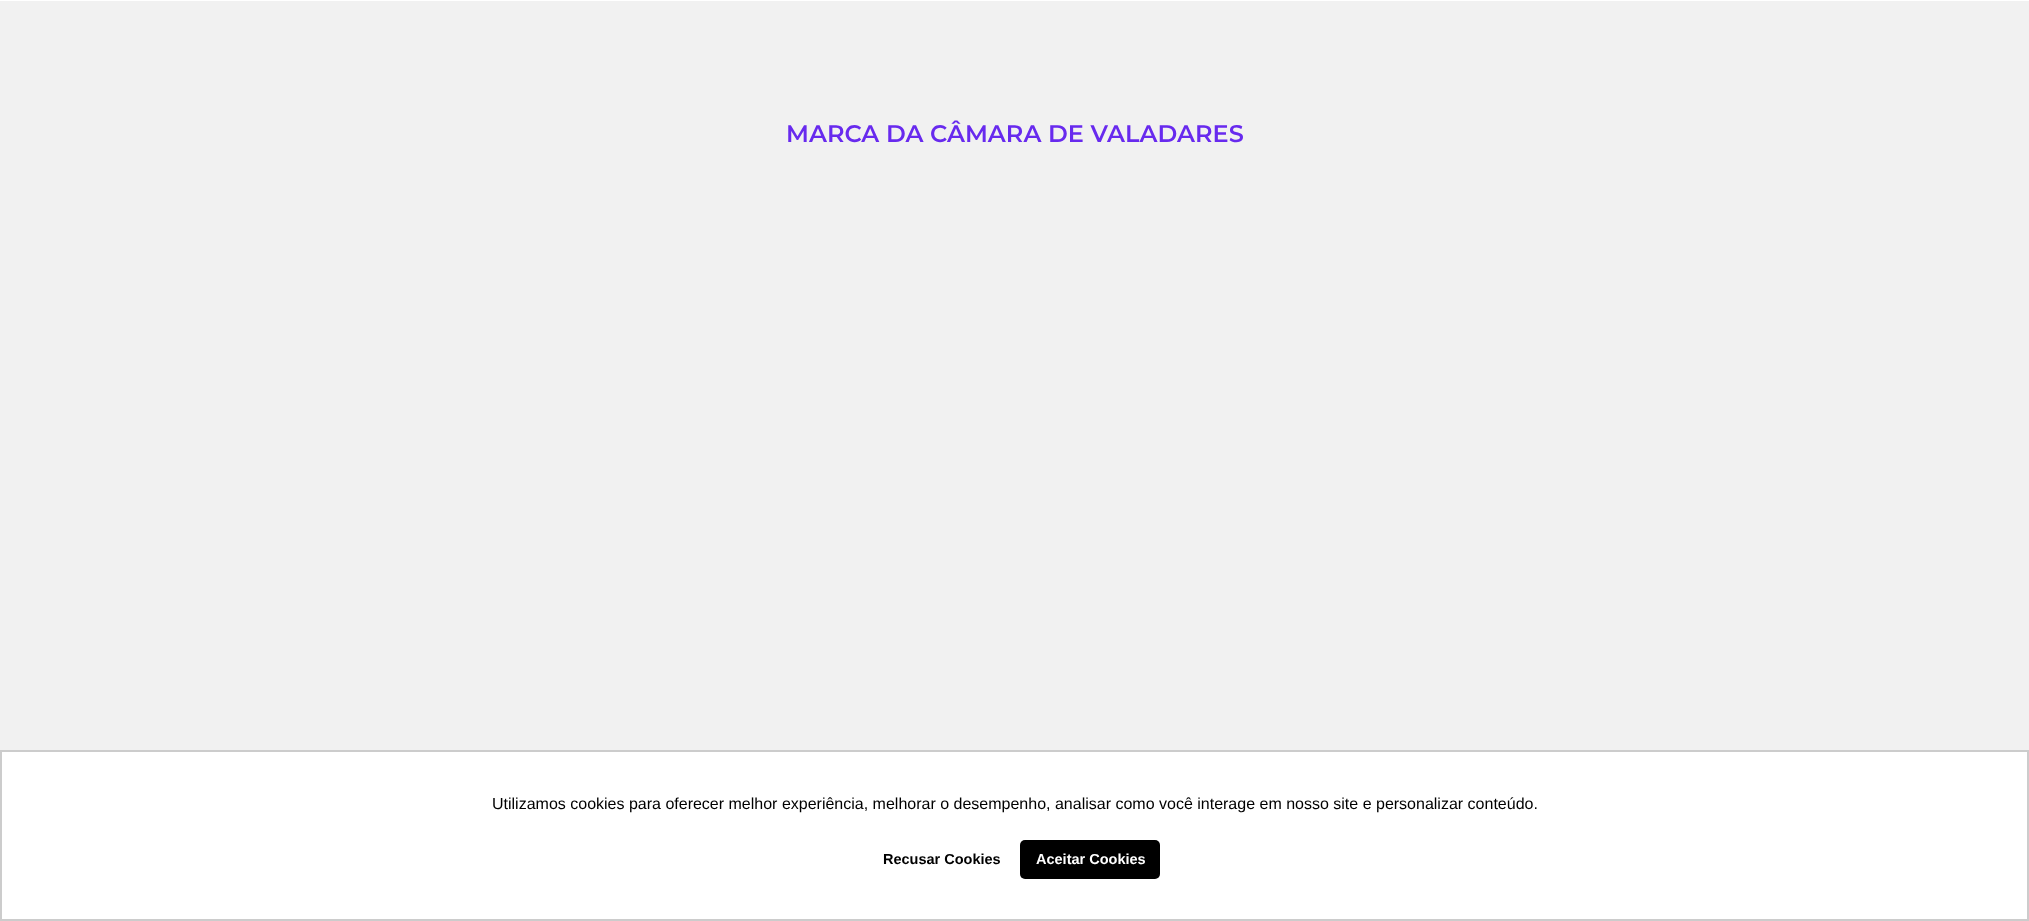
<svg xmlns="http://www.w3.org/2000/svg" width="2029" height="921" viewBox="0 0 2029 921">
  <rect width="100%" height="100%" fill="#ffffff"/>
  <rect x="0" y="1" width="2029" height="749" fill="#f1f1f1"/>
  <text x="786" y="142" font-family="Montserrat" font-size="24" font-weight="600" fill="#682aee">MARCA DA CÂMARA DE VALADARES</text>
  <rect x="1" y="751" width="2027" height="169" fill="none" stroke="#cccccc" stroke-width="2"/>
  <text x="492" y="809" font-family="Liberation Sans" font-size="16" fill="#000000">Utilizamos cookies para oferecer melhor experiência, melhorar o desempenho, analisar como você interage em nosso site e personalizar conteúdo.</text>
  <text x="883" y="864" font-family="Liberation Sans" font-size="14.5" font-weight="bold" fill="#000000">Recusar Cookies</text>
  <rect x="1020" y="840" width="140" height="39" rx="5" fill="#000000"/>
  <text x="1036" y="864" font-family="Liberation Sans" font-size="14.5" font-weight="bold" fill="#ffffff">Aceitar Cookies</text>
</svg>
